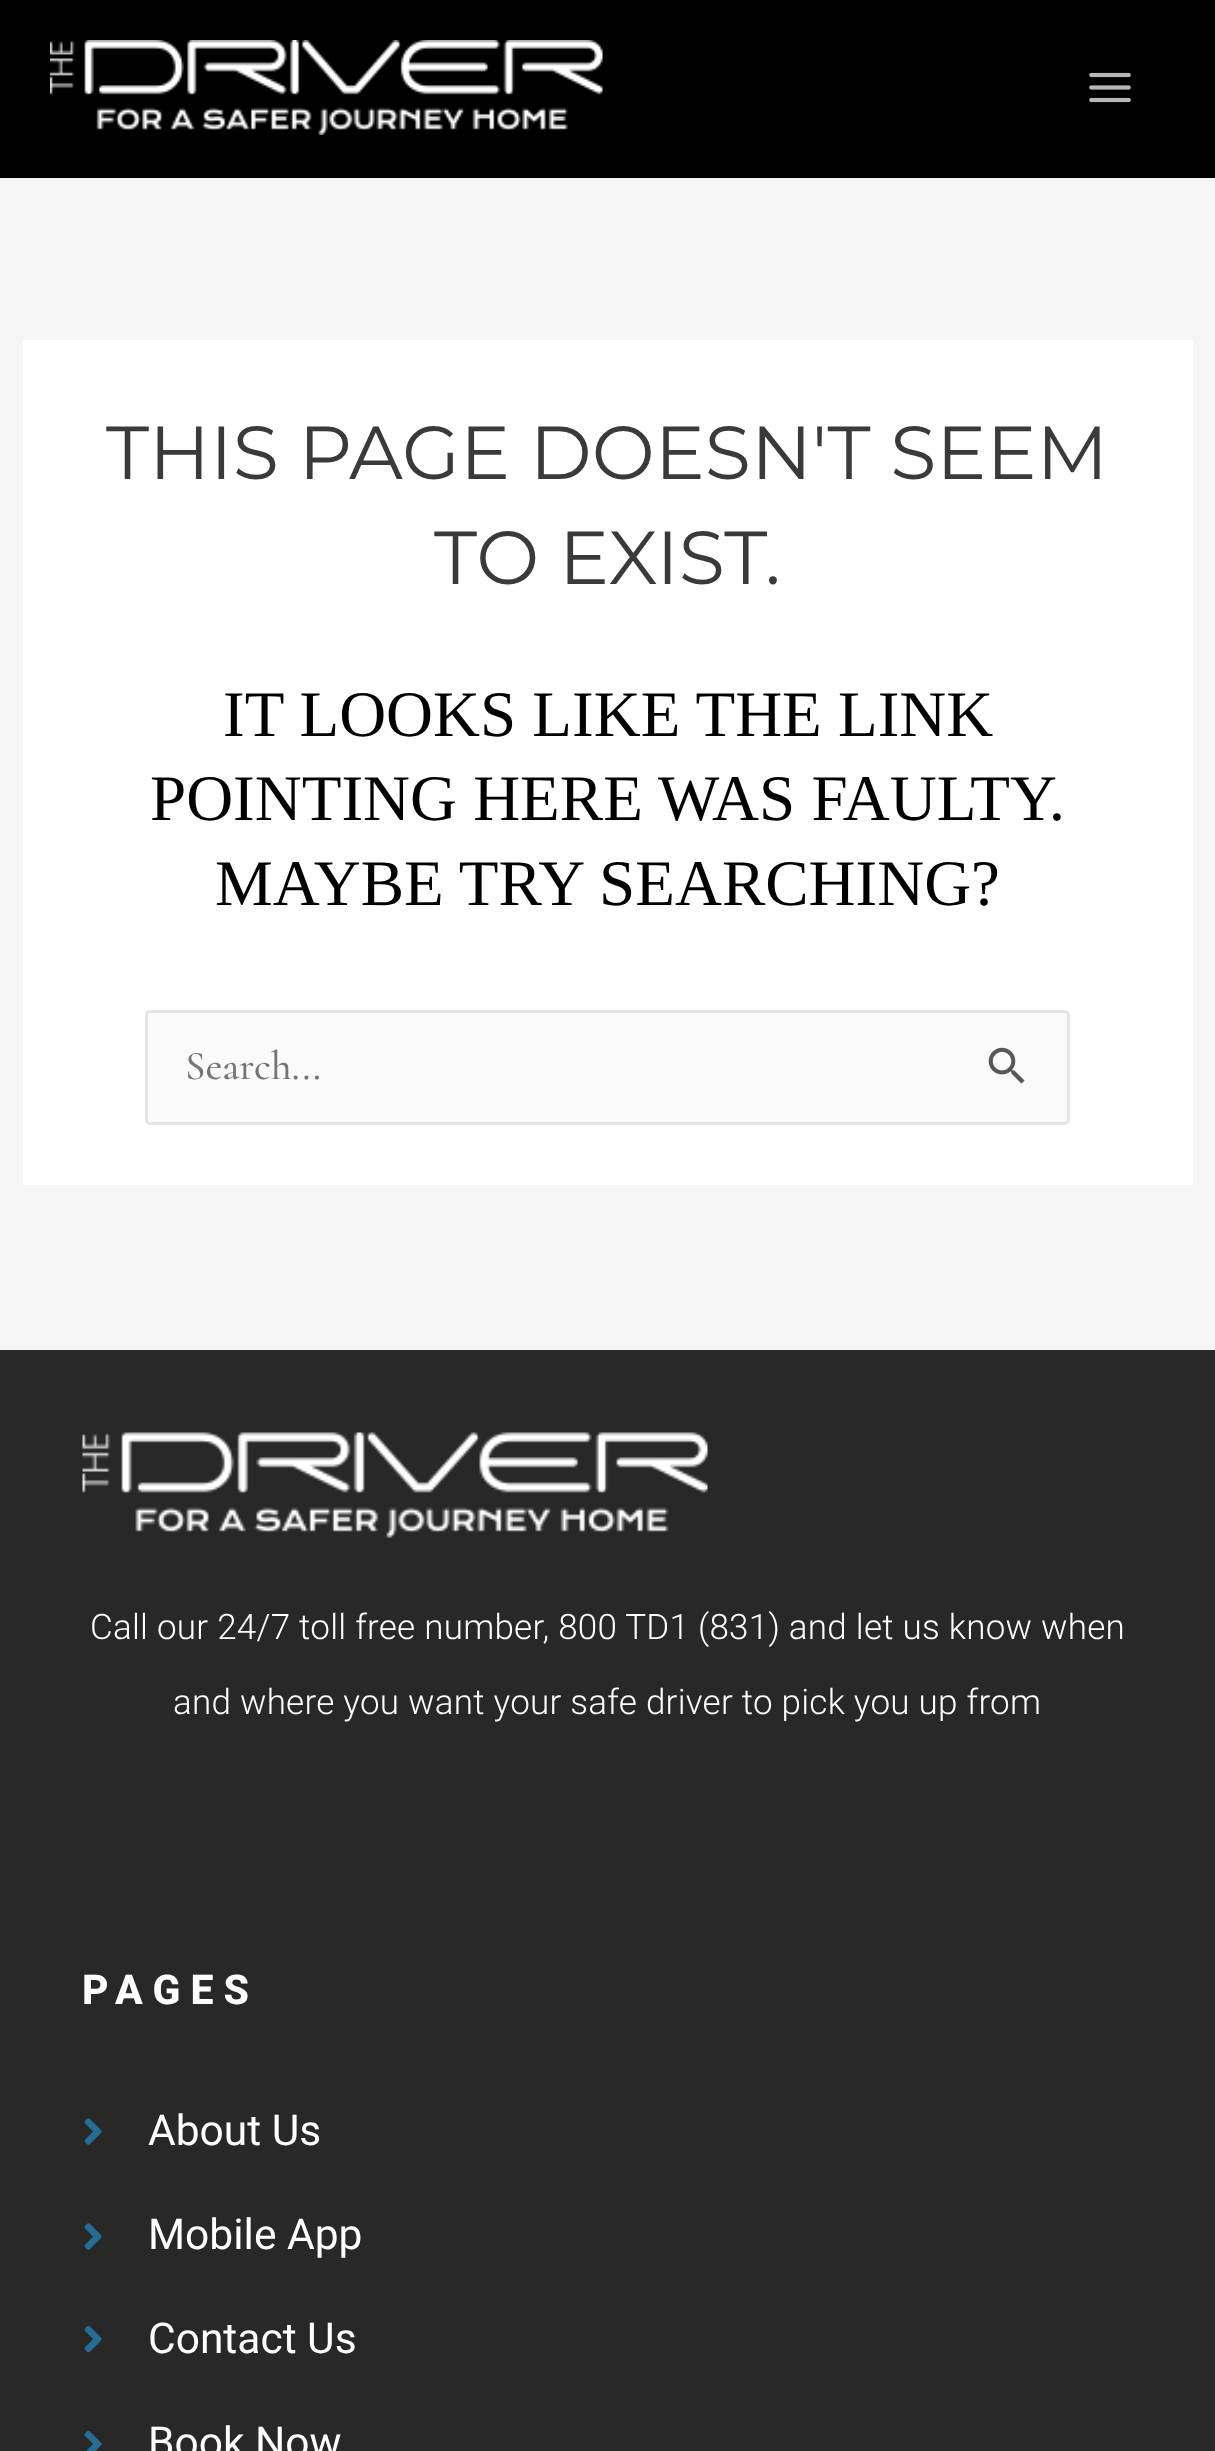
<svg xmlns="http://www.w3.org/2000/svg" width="1215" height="2451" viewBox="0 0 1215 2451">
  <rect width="100%" height="100%" fill="#f5f5f5"/>
  <rect x="0" y="0" width="1215" height="178" fill="#000000"/>
  <image x="50" y="40" width="553" height="95" href="img1.png"/>
  <image x="1089" y="72" width="42" height="31" href="img2.png"/>
  <rect x="23" y="340" width="1170" height="845" fill="#ffffff"/>
  <text x="106" y="479" font-family="Montserrat" font-size="75" fill="#3a3a3a">THIS PAGE DOESN'T SEEM</text>
  <text x="434" y="584" font-family="Montserrat" font-size="75" fill="#3a3a3a">TO EXIST.</text>
  <text x="223" y="736" font-family="Liberation Serif" font-size="65" fill="#000000">IT LOOKS LIKE THE LINK</text>
  <text x="150" y="820" font-family="Liberation Serif" font-size="65" fill="#000000">POINTING HERE WAS FAULTY.</text>
  <text x="215" y="905" font-family="Liberation Serif" font-size="65" fill="#000000">MAYBE TRY SEARCHING?</text>
  <rect x="146.5" y="1011.5" width="922" height="112" rx="3.5" fill="#fafafa" stroke="#e5e5e5" stroke-width="3"/>
  <text x="185" y="1079" font-family="Cormorant" font-size="41" font-weight="300" fill="#757575">Search...</text>
  <image x="988" y="1047" width="37" height="37" href="img3.png"/>
  <rect x="0" y="1350" width="1215" height="1101" fill="#282828"/>
  <image x="82" y="1432" width="626" height="106" href="img4.png"/>
  <text x="90" y="1639" font-family="Roboto" font-size="35" font-weight="300" letter-spacing="0.25" fill="#ffffff">Call our 24/7 toll free number, 800 TD1 (831) and let us know when</text>
  <text x="173" y="1714" font-family="Roboto" font-size="35" font-weight="300" letter-spacing="0.25" fill="#ffffff">and where you want your safe driver to pick you up from</text>
  <text x="82" y="2004" font-family="Roboto" font-size="41" font-weight="800" letter-spacing="10" fill="#ffffff">PAGES</text>
  <image x="84" y="2118" width="18" height="27" href="img5.png"/>
  <text x="148" y="2145" font-family="Roboto" font-size="42.5" fill="#ffffff">About Us</text>
  <image x="84" y="2223" width="18" height="27" href="img5.png"/>
  <text x="148" y="2249" font-family="Roboto" font-size="42.5" fill="#ffffff">Mobile App</text>
  <image x="84" y="2325" width="18" height="28" href="img6.png"/>
  <text x="148" y="2353" font-family="Roboto" font-size="42.5" fill="#ffffff">Contact Us</text>
  <image x="84" y="2430" width="18" height="21" href="img7.png"/>
  <text x="148" y="2457" font-family="Roboto" font-size="42.5" fill="#ffffff">Book Now</text>
</svg>
